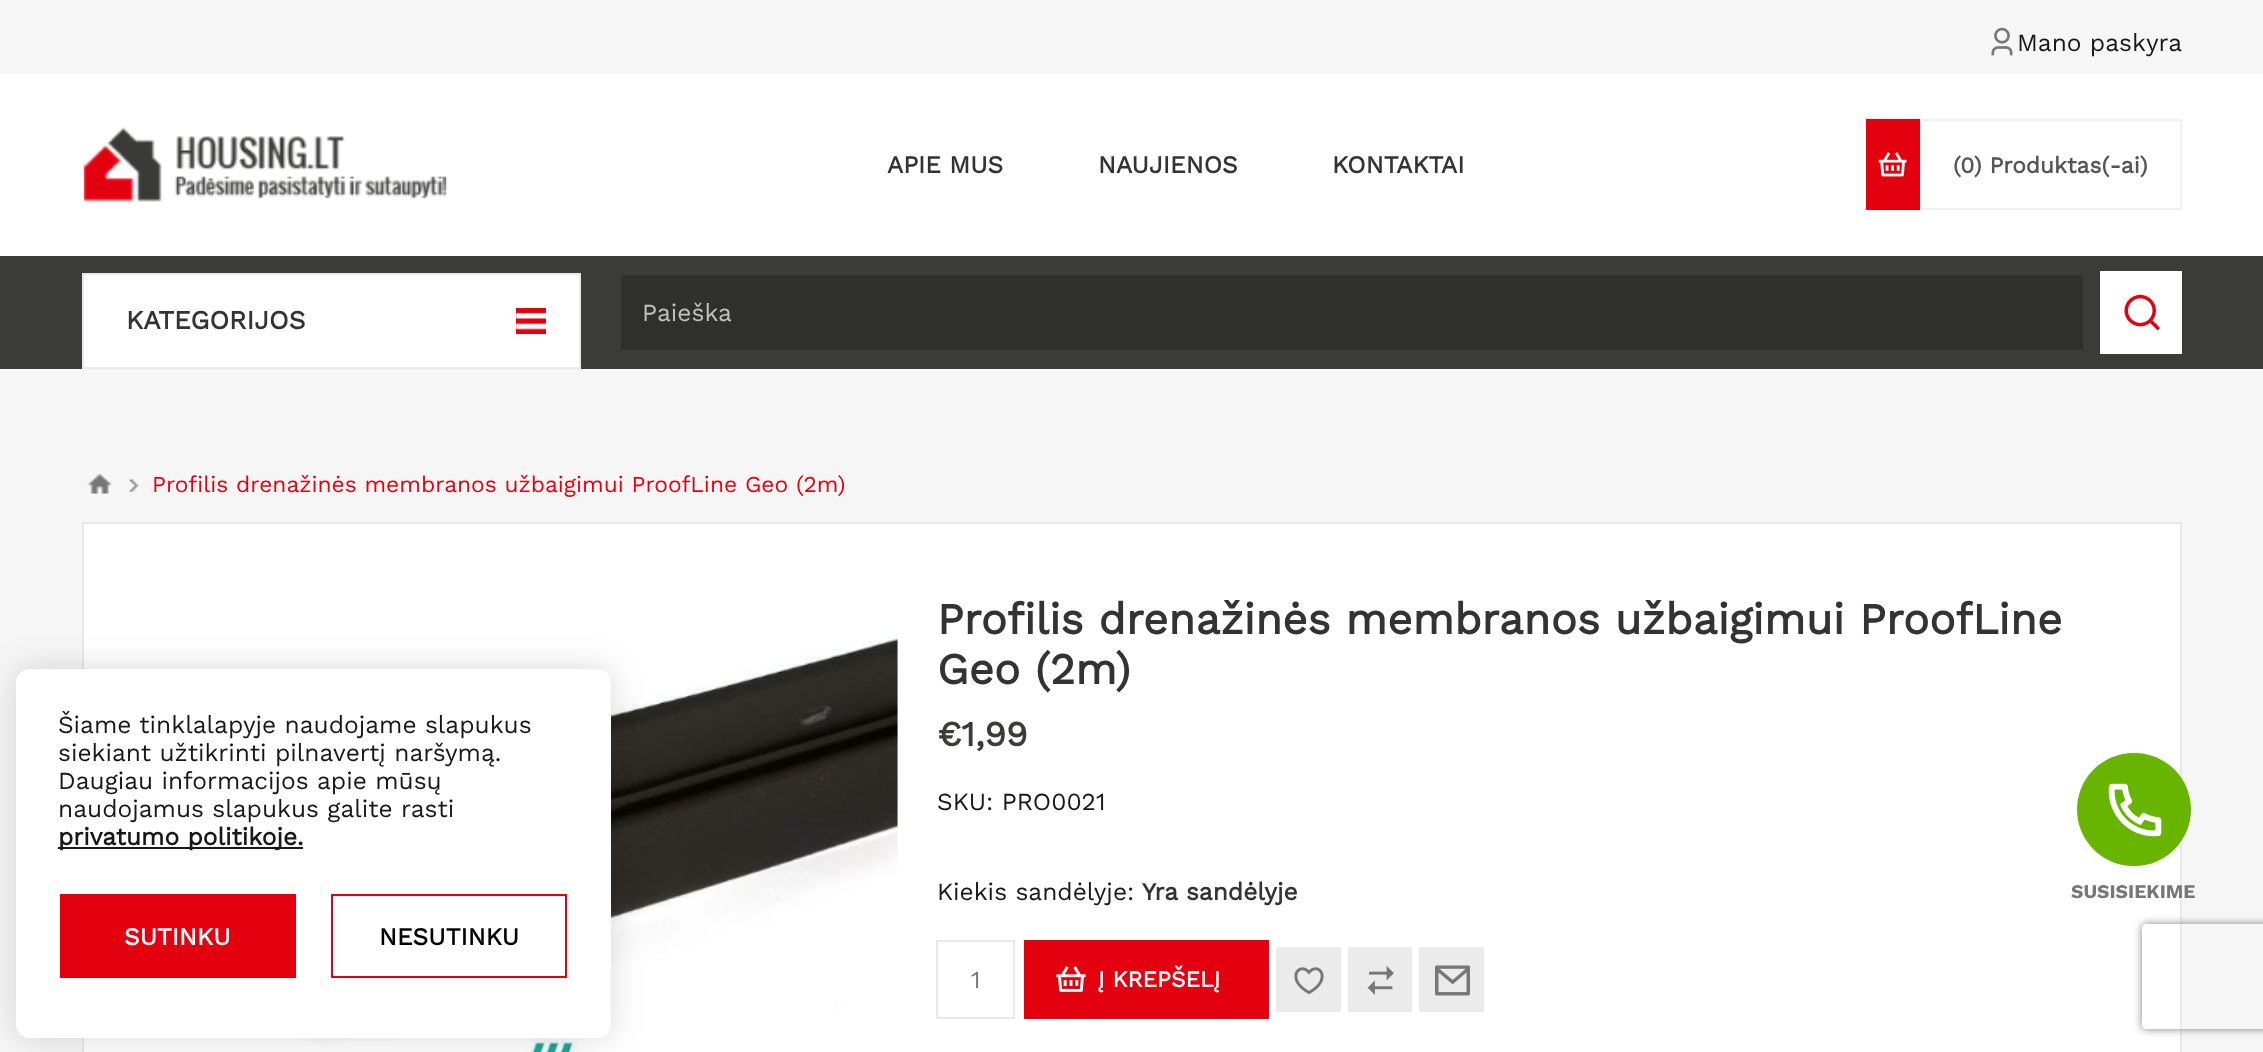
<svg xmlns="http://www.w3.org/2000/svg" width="2263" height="1052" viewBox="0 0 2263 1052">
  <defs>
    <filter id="blur1" x="-50%" y="-200%" width="200%" height="500%"><feGaussianBlur stdDeviation="17.5"/></filter>
    <clipPath id="clip1"><path d="M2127 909H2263V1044H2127ZM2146 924H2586C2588 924 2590 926 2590 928V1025C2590 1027 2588 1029 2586 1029H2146C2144 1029 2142 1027 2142 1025V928C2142 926 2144 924 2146 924Z" clip-rule="evenodd"/></clipPath>
    <filter id="blur2" x="-50%" y="-200%" width="200%" height="500%"><feGaussianBlur stdDeviation="4.5"/></filter>
  </defs>
  <rect width="100%" height="100%" fill="#f6f6f6"/>
  <image x="1991" y="27" width="22" height="29" href="img1.png"/>
  <text x="2017" y="51" font-family="Work Sans" font-size="24.5" fill="#181818">Mano paskyra</text>
  <rect x="0" y="74" width="2263" height="182" fill="#ffffff"/>
  <image x="84" y="127" width="363" height="75" href="img2.png"/>
  <text x="887" y="173" font-family="Work Sans" font-size="24.5" font-weight="bold" fill="#333333">APIE MUS</text>
  <text x="1098" y="173" font-family="Work Sans" font-size="24.5" font-weight="bold" fill="#333333">NAUJIENOS</text>
  <text x="1332" y="173" font-family="Work Sans" font-size="24.5" font-weight="bold" fill="#333333">KONTAKTAI</text>
  <rect x="1921" y="120" width="260" height="89" fill="none" stroke="#f0f0f0" stroke-width="2"/>
  <rect x="1866" y="119" width="54" height="91" fill="#e3000f"/>
  <image x="1878" y="152" width="29" height="25" href="img3.png"/>
  <text x="1953" y="173" font-family="Work Sans" font-size="22.75" font-weight="bold" fill="#555555">(0) Produktas(-ai)</text>
  <rect x="0" y="256" width="2263" height="113" fill="#3b3b3a"/>
  <rect x="83" y="274" width="497" height="94" fill="#ffffff" stroke="#e9e9e9" stroke-width="2"/>
  <text x="126" y="329" font-family="Work Sans" font-size="26.25" font-weight="bold" fill="#333333">KATEGORIJOS</text>
  <rect x="516" y="308" width="30" height="26" fill="#e3000f"/>
  <image x="516" y="312" width="30" height="18" href="img4.png"/>
  <rect x="621" y="275" width="1462" height="75" fill="#2f2f2e"/>
  <text x="642" y="321" font-family="Work Sans" font-size="24.5" fill="#c1c1c0">Paieška</text>
  <rect x="2100" y="271" width="82" height="83" fill="#ffffff"/>
  <image x="2124" y="294" width="36" height="37" href="img5.png"/>
  <image x="87" y="474" width="25" height="20" href="img6.png"/>
  <image x="129" y="479" width="10" height="13" href="img7.png"/>
  <text x="152" y="492" font-family="Work Sans" font-size="22.75" fill="#e3000f">Profilis drenažinės membranos užbaigimui ProofLine Geo (2m)</text>
  <rect x="83" y="523" width="2098" height="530" fill="#ffffff" stroke="#e9e9e9" stroke-width="2"/>
  <image x="267" y="633" width="631" height="419" href="img8.png"/>
  <text x="937" y="634" font-family="Work Sans" font-size="43.75" font-weight="bold" fill="#333333">Profilis drenažinės membranos užbaigimui ProofLine</text>
  <text x="937" y="684" font-family="Work Sans" font-size="43.75" font-weight="bold" fill="#333333">Geo (2m)</text>
  <text x="937" y="746" font-family="Work Sans" font-size="35" font-weight="bold" fill="#3b3b3a">€1,99</text>
  <text x="937" y="810" font-family="Work Sans" font-size="24.5" fill="#181818">SKU: PRO0021</text>
  <text x="937" y="900" font-family="Work Sans" font-size="24.5" fill="#181818">Kiekis sandėlyje:</text>
  <text x="1142" y="900" font-family="Work Sans" font-size="24.5" font-weight="bold" fill="#333333">Yra sandėlyje</text>
  <rect x="937" y="941" width="77" height="77" fill="none" stroke="#e9e9e9" stroke-width="2"/>
  <text x="971" y="988" font-family="Work Sans" font-size="24.5" fill="#777777">1</text>
  <rect x="1024" y="940" width="245" height="79" fill="#e3000f"/>
  <image x="1056" y="966" width="30" height="26" href="img9.png"/>
  <text x="1098" y="987" font-family="Work Sans" font-size="22.75" font-weight="bold" fill="#ffffff">Į KREPŠELĮ</text>
  <rect x="1276" y="947" width="65" height="65" fill="#ebebeb"/>
  <image x="1294" y="967" width="30" height="28" href="img10.png"/>
  <rect x="1348" y="947" width="64" height="65" fill="#ebebeb"/>
  <image x="1367" y="966" width="27" height="29" href="img11.png"/>
  <rect x="1419" y="947" width="65" height="65" fill="#ebebeb"/>
  <image x="1435" y="965" width="35" height="31" href="img12.png"/>
  <rect x="16" y="669" width="595" height="369" rx="14" fill="#000000" fill-opacity="0.15" filter="url(#blur1)"/>
  <rect x="16" y="669" width="595" height="369" rx="14" fill="#ffffff"/>
  <text x="58" y="733" font-family="Work Sans" font-size="24.5" fill="#181818">Šiame tinklalapyje naudojame slapukus</text>
  <text x="58" y="761" font-family="Work Sans" font-size="24.5" fill="#181818">siekiant užtikrinti pilnavertį naršymą.</text>
  <text x="58" y="789" font-family="Work Sans" font-size="24.5" fill="#181818">Daugiau informacijos apie mūsų</text>
  <text x="58" y="817" font-family="Work Sans" font-size="24.5" fill="#181818">naudojamus slapukus galite rasti</text>
  <rect x="58" y="847" width="245" height="2" fill="#181818"/>
  <text x="58" y="845" font-family="Work Sans" font-size="24.5" font-weight="bold" fill="#181818">privatumo politikoje.</text>
  <rect x="60" y="894" width="236" height="84" fill="#e3000f"/>
  <text x="124" y="945" font-family="Work Sans" font-size="24.5" font-weight="bold" fill="#ffffff">SUTINKU</text>
  <rect x="332" y="895" width="234" height="82" fill="none" stroke="#e3000f" stroke-width="2"/>
  <text x="379" y="945" font-family="Work Sans" font-size="24.5" font-weight="bold" fill="#000000">NESUTINKU</text>
  <rect x="2077" y="753" width="114" height="113" rx="56.5" fill="#67b501"/>
  <image x="2108" y="783" width="54" height="54" href="img13.png"/>
  <text x="2071" y="898" font-family="'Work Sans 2'" font-size="19.25" font-weight="bold" fill="#777777">SUSISIEKIME</text>
  <g clip-path="url(#clip1)">
    <rect x="2142" y="924" width="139" height="105" rx="4" fill="#808080" filter="url(#blur2)"/>
  </g>
</svg>
